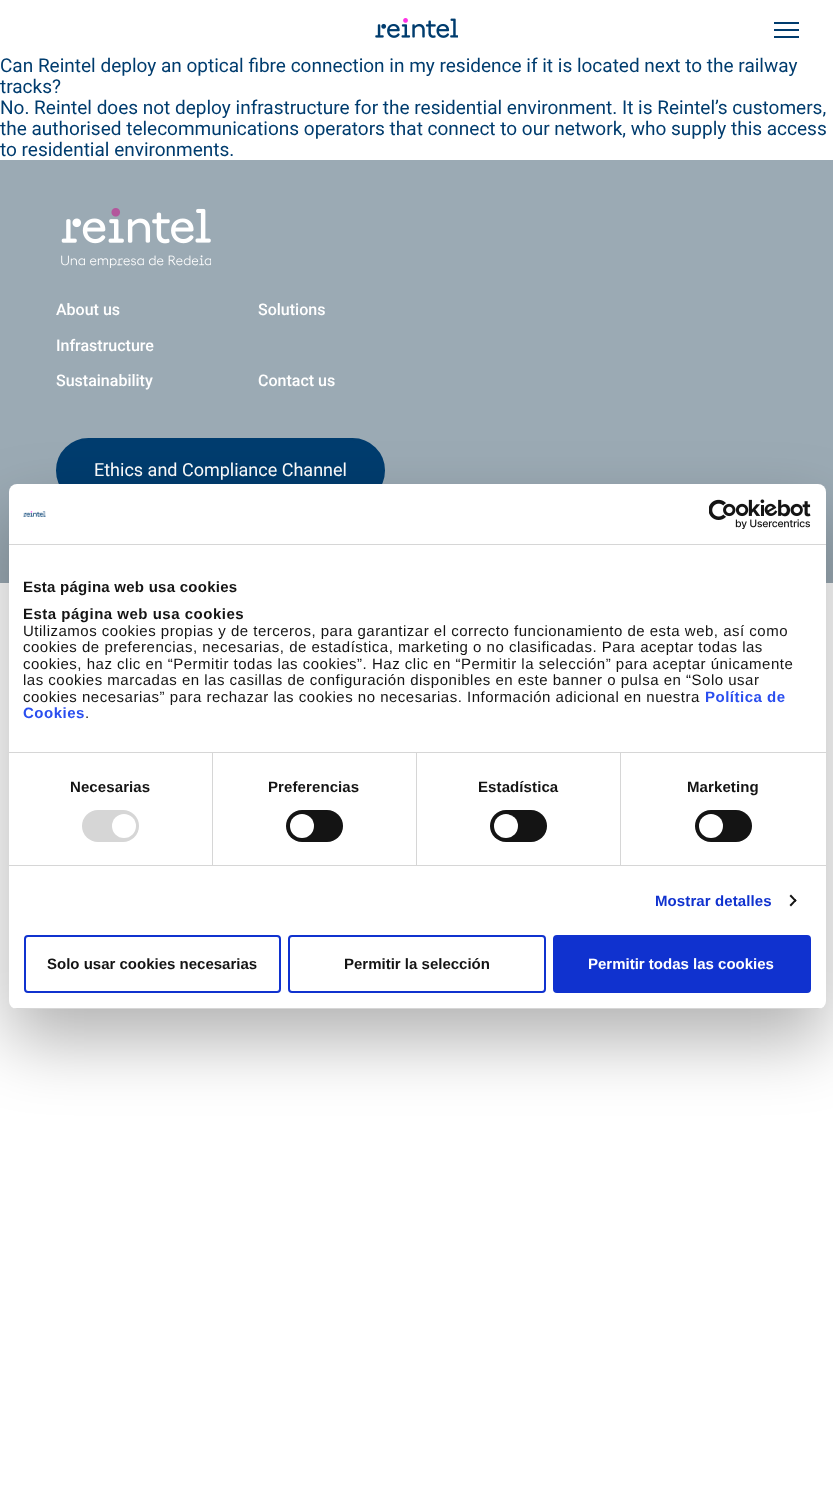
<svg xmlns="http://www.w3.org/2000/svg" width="833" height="1493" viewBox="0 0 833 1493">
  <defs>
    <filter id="blur1" x="-50%" y="-200%" width="200%" height="500%"><feGaussianBlur stdDeviation="34"/></filter>
    <clipPath id="clip1"><rect x="9" y="484" width="817" height="525" rx="8"/></clipPath>
  </defs>
  <rect width="100%" height="100%" fill="#ffffff"/>
  <image x="375" y="18" width="83" height="20" href="img1.png"/>
  <rect x="774" y="22" width="25" height="2" fill="#003c6e"/>
  <rect x="774" y="29" width="25" height="2" fill="#003c6e"/>
  <rect x="774" y="36" width="25" height="2" fill="#003c6e"/>
  <text x="0" y="72" font-family="Roboto" font-size="19" fill="#003c6e">Can Reintel deploy an optical fibre connection in my residence if it is located next to the railway</text>
  <text x="0" y="93" font-family="Roboto" font-size="19" fill="#003c6e">tracks?</text>
  <text x="0" y="114" font-family="Roboto" font-size="19" fill="#003c6e">No. Reintel does not deploy infrastructure for the residential environment. It is Reintel’s customers,</text>
  <text x="0" y="135" font-family="Roboto" font-size="19" fill="#003c6e">the authorised telecommunications operators that connect to our network, who supply this access</text>
  <text x="0" y="156" font-family="Roboto" font-size="19" fill="#003c6e">to residential environments.</text>
  <rect x="0" y="160" width="833" height="423" fill="#9baab4"/>
  <image x="61" y="208" width="150" height="60" href="img2.png"/>
  <text x="56" y="315" font-family="Roboto" font-size="16" font-weight="500" fill="#ffffff">About us</text>
  <text x="258" y="315" font-family="Roboto" font-size="16" font-weight="500" fill="#ffffff">Solutions</text>
  <text x="56" y="351" font-family="Roboto" font-size="16" font-weight="500" fill="#ffffff">Infrastructure</text>
  <text x="56" y="386" font-family="Roboto" font-size="16" font-weight="500" fill="#ffffff">Sustainability</text>
  <text x="258" y="386" font-family="Roboto" font-size="16" font-weight="500" fill="#ffffff">Contact us</text>
  <rect x="57" y="439" width="327" height="63" rx="31.5" fill="#003c6e" stroke="#003c6e" stroke-width="2"/>
  <text x="94" y="476" font-family="Roboto" font-size="18" fill="#ffffff">Ethics and Compliance Channel</text>
  <rect x="9" y="516" width="817" height="525" rx="8" fill="#000000" fill-opacity="0.3" filter="url(#blur1)"/>
  <rect x="9" y="484" width="817" height="525" rx="8" fill="#ffffff"/>
  <rect x="9" y="544" width="817" height="1" fill="#d6d6d6"/>
  <image x="23" y="511" width="23" height="6" href="img3.png"/>
  <image x="709" y="499" width="102" height="30" href="img4.png"/>
  <rect x="9" y="752" width="817" height="1" fill="#d6d6d6"/>
  <text x="23" y="592" font-family="Liberation Sans" font-size="15" font-weight="bold" letter-spacing="0.25" fill="#141414">Esta página web usa cookies</text>
  <text x="23" y="619" font-family="Liberation Sans" font-size="15" font-weight="bold" letter-spacing="0.5" fill="#141414">Esta página web usa cookies</text>
  <text x="23" y="636" font-family="Liberation Sans" font-size="15" letter-spacing="0.5" fill="#141414">Utilizamos cookies propias y de terceros, para garantizar el correcto funcionamiento de esta web, así como</text>
  <text x="23" y="652" font-family="Liberation Sans" font-size="15" letter-spacing="0.5" fill="#141414">cookies de preferencias, necesarias, de estadística, marketing o no clasificadas. Para aceptar todas las</text>
  <text x="23" y="669" font-family="Liberation Sans" font-size="15" letter-spacing="0.5" fill="#141414">cookies, haz clic en “Permitir todas las cookies”. Haz clic en “Permitir la selección” para aceptar únicamente</text>
  <text x="23" y="685" font-family="Liberation Sans" font-size="15" letter-spacing="0.5" fill="#141414">las cookies marcadas en las casillas de configuración disponibles en este banner o pulsa en “Solo usar</text>
  <text x="23" y="702" font-family="Liberation Sans" font-size="15" letter-spacing="0.5" fill="#141414">cookies necesarias” para rechazar las cookies no necesarias. Información adicional en nuestra</text>
  <text x="705" y="702" font-family="Liberation Sans" font-size="15" font-weight="bold" letter-spacing="0.5" fill="#2a4eef">Política de</text>
  <text x="23" y="718" font-family="Liberation Sans" font-size="15" font-weight="bold" letter-spacing="0.5" fill="#2a4eef">Cookies</text>
  <text x="85" y="718" font-family="Liberation Sans" font-size="15" letter-spacing="0.5" fill="#141414">.</text>
  <rect x="9" y="865" width="817" height="1" fill="#d6d6d6"/>
  <rect x="212" y="753" width="1" height="112" fill="#d6d6d6"/>
  <text x="70" y="792" font-family="Liberation Sans" font-size="15" font-weight="bold" letter-spacing="0.1" fill="#141414">Necesarias</text>
  <rect x="82" y="810" width="57" height="32" rx="16" fill="#d6d6d6"/>
  <circle cx="124" cy="826" r="12" fill="#ffffff"/>
  <rect x="416" y="753" width="1" height="112" fill="#d6d6d6"/>
  <text x="268" y="792" font-family="Liberation Sans" font-size="15" font-weight="bold" letter-spacing="0.1" fill="#141414">Preferencias</text>
  <rect x="286" y="810" width="57" height="32" rx="16" fill="#141414"/>
  <circle cx="302" cy="826" r="12" fill="#ffffff"/>
  <rect x="620" y="753" width="1" height="112" fill="#d6d6d6"/>
  <text x="478" y="792" font-family="Liberation Sans" font-size="15" font-weight="bold" letter-spacing="0.1" fill="#141414">Estadística</text>
  <rect x="490" y="810" width="57" height="32" rx="16" fill="#141414"/>
  <circle cx="506" cy="826" r="12" fill="#ffffff"/>
  <text x="687" y="792" font-family="Liberation Sans" font-size="15" font-weight="bold" letter-spacing="0.1" fill="#141414">Marketing</text>
  <rect x="695" y="810" width="57" height="32" rx="16" fill="#141414"/>
  <circle cx="711" cy="826" r="12" fill="#ffffff"/>
  <text x="655" y="906" font-family="Liberation Sans" font-size="15" font-weight="bold" letter-spacing="0.1" fill="#1032cf">Mostrar detalles</text>
  <path d="M791 894.5L796.5 900.5L795.5 902L789.5 896Z" fill="#141414"/>
  <path d="M795.5 899L796.5 900.5L791 906.5L789.5 905Z" fill="#141414"/>
  <g clip-path="url(#clip1)">
    <rect x="9" y="1008" width="817" height="1" fill="#d6d6d6"/>
  </g>
  <rect x="25" y="936" width="255" height="56" rx="3" fill="none" stroke="#1032cf" stroke-width="2"/>
  <text x="47" y="969" font-family="Liberation Sans" font-size="15" font-weight="bold" fill="#141414">Solo usar cookies necesarias</text>
  <rect x="289" y="936" width="256" height="56" rx="3" fill="none" stroke="#1032cf" stroke-width="2"/>
  <text x="344" y="969" font-family="Liberation Sans" font-size="15" font-weight="bold" fill="#141414">Permitir la selección</text>
  <rect x="554" y="936" width="256" height="56" rx="3" fill="#1032cf" stroke="#1032cf" stroke-width="2"/>
  <text x="588" y="969" font-family="Liberation Sans" font-size="15" font-weight="bold" fill="#ffffff">Permitir todas las cookies</text>
</svg>
